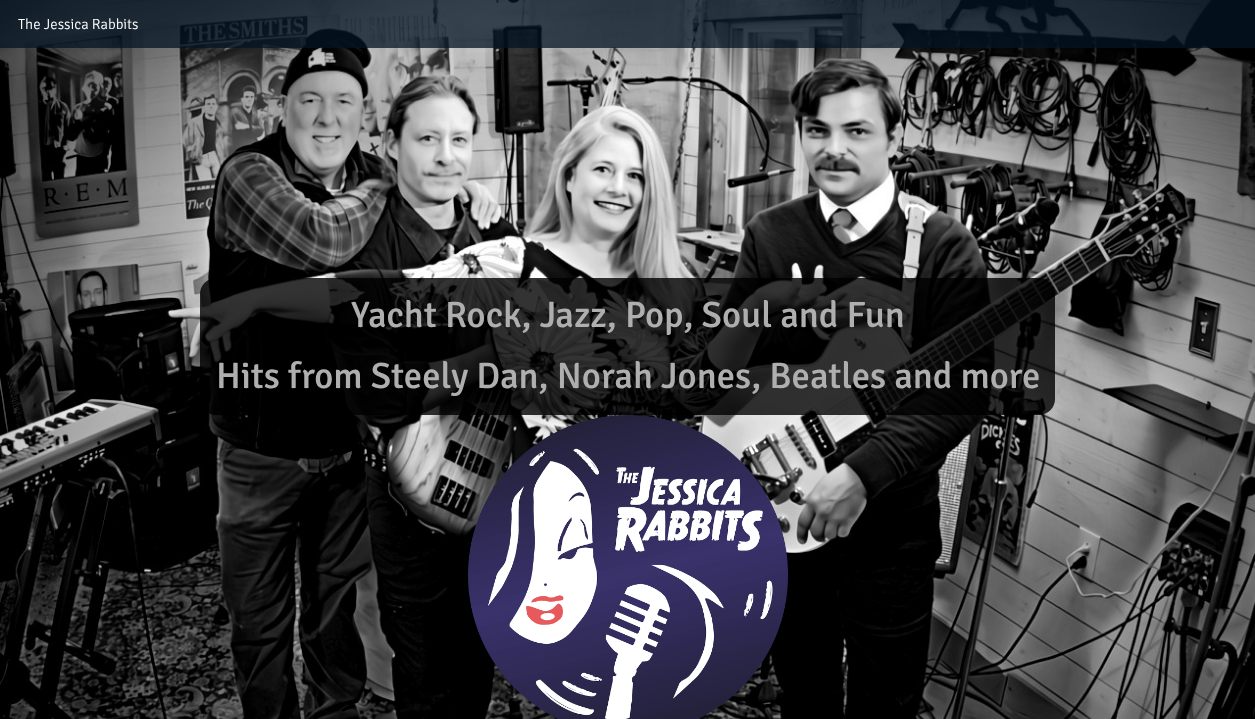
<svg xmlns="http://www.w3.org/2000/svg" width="1255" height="719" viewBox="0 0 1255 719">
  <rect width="100%" height="100%" fill="#ffffff"/>
  <image x="0" y="0" width="1255" height="719" href="img1.png"/>
  <rect x="0" y="0" width="1255" height="48" fill="#041625" fill-opacity="0.75"/>
  <text x="18" y="29" font-family="Signika" font-size="14.75" font-weight="300" fill="#ffffff">The Jessica Rabbits</text>
  <rect x="200" y="278" width="855" height="137" rx="16" fill="#000000" fill-opacity="0.8"/>
  <text x="351" y="327" font-family="Signika" font-size="36.7" font-weight="500" fill="#afafaf">Yacht Rock, Jazz, Pop, Soul and Fun</text>
  <text x="216" y="388" font-family="Signika" font-size="36.7" font-weight="500" fill="#afafaf">Hits from Steely Dan, Norah Jones, Beatles and more</text>
  <image x="468" y="415" width="320" height="304" href="img2.png"/>
</svg>
